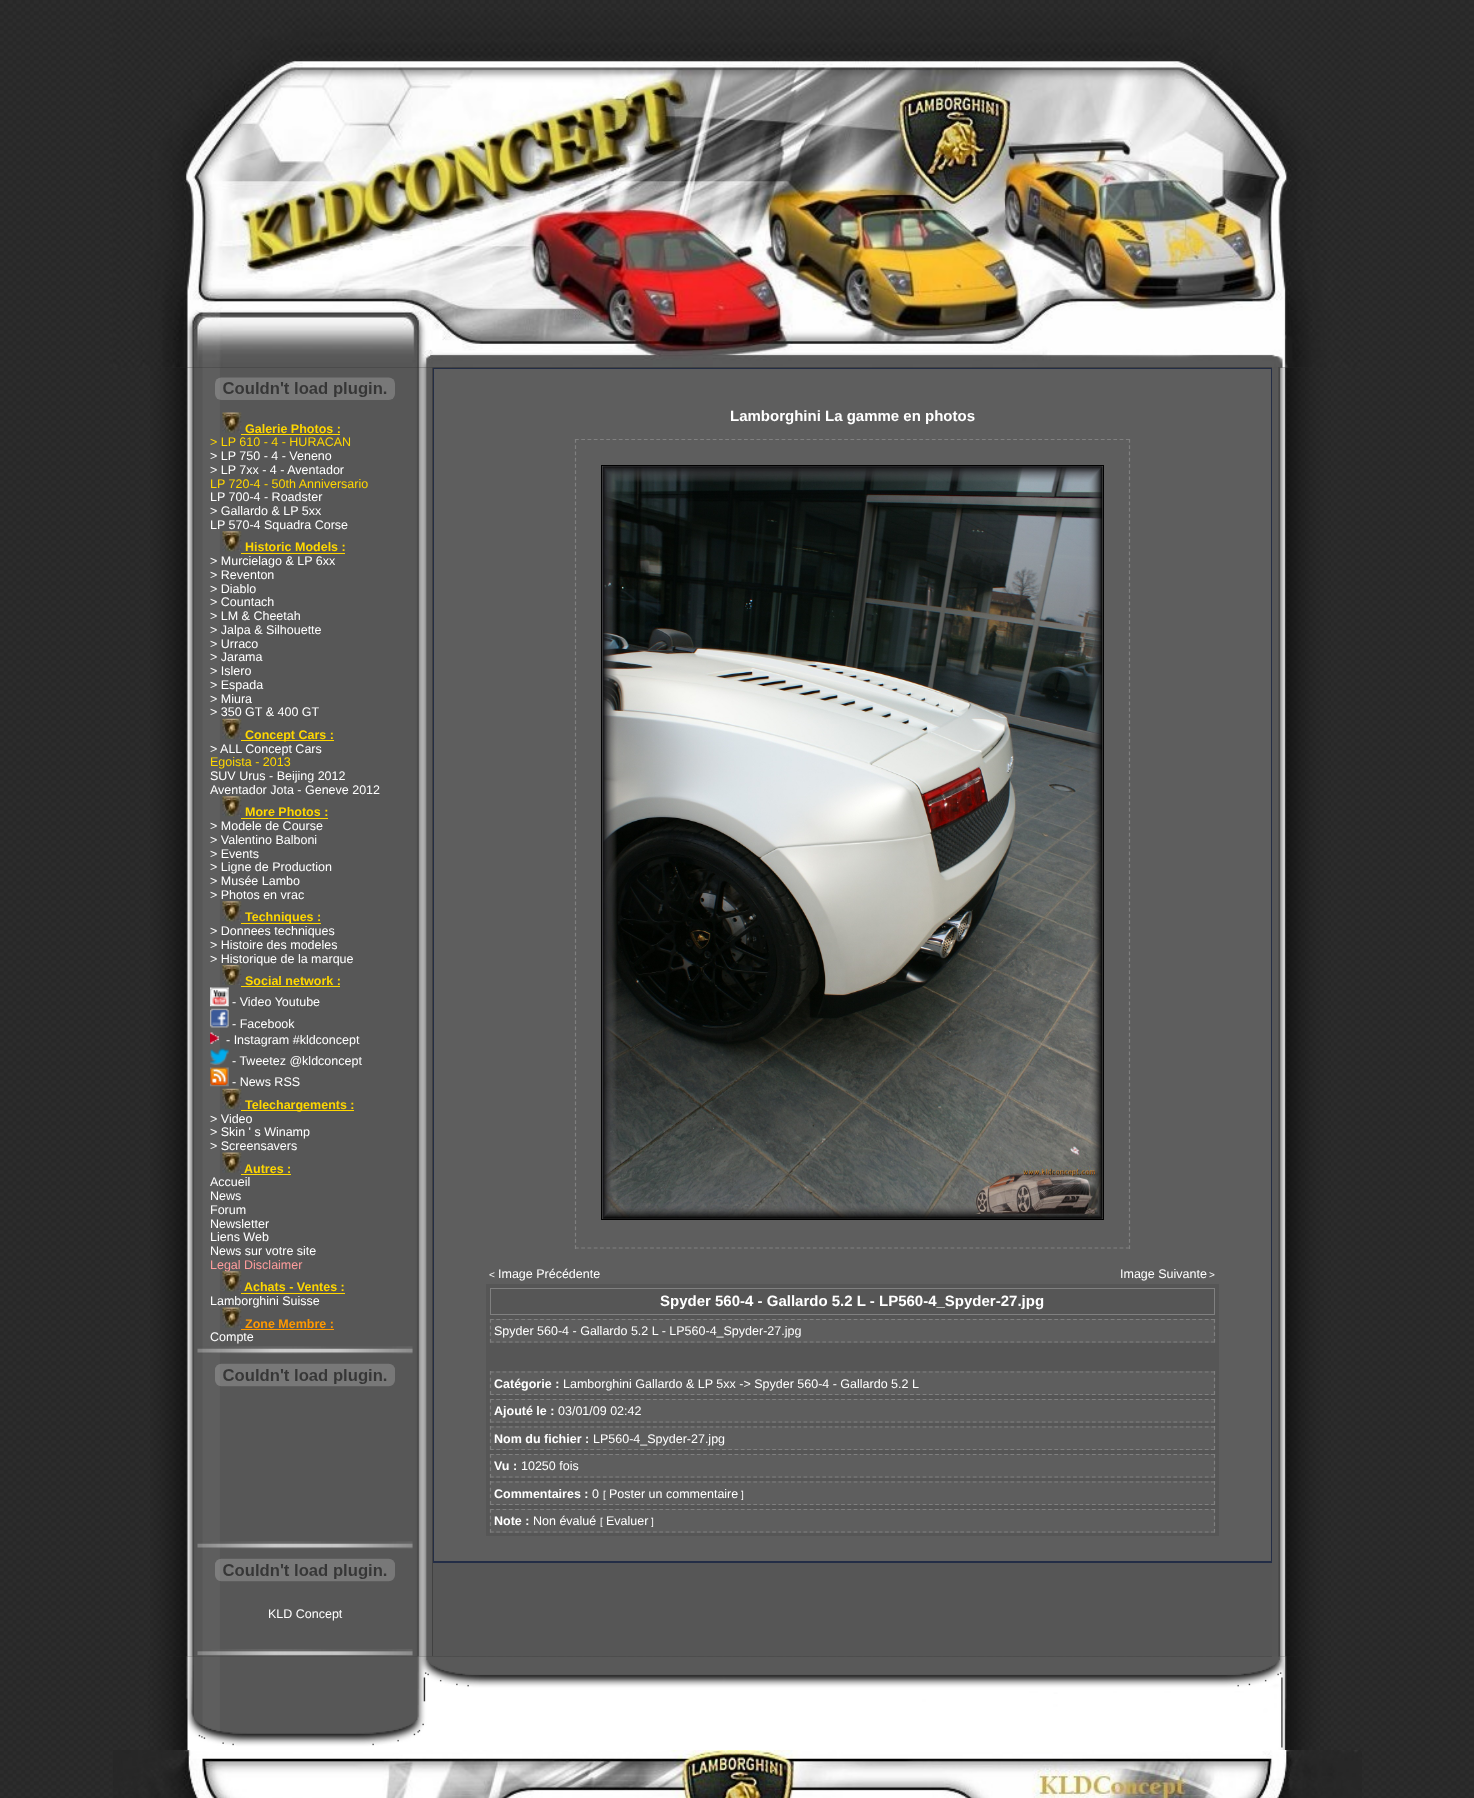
<svg xmlns="http://www.w3.org/2000/svg" width="1474" height="1798" viewBox="0 0 1474 1798">
  <rect width="100%" height="100%" fill="#ffffff"/>
  <image x="0" y="0" width="1474" height="1798" href="img1.png"/>
  <image x="150" y="367" width="45" height="1290" href="img3.png"/>
  <image x="195" y="367" width="220" height="1290" href="img4.png"/>
  <image x="415" y="367" width="18" height="1290" href="img19.png"/>
  <rect x="1272" y="367" width="6" height="1290" fill="#575757"/>
  <image x="1278" y="367" width="53" height="1290" href="img21.png"/>
  <image x="113" y="10" width="1247" height="358" href="img2.png"/>
  <image x="215" y="377" width="180" height="23" href="img5.png"/>
  <image x="222" y="412" width="20" height="21" href="img6.png"/>
  <text x="245" y="433" font-family="Liberation Sans" font-size="12.5" font-weight="bold" fill="#ffd700">Galerie Photos :</text>
  <rect x="241" y="434" width="99" height="1" fill="#ffd700"/>
  <text x="210" y="446" font-family="Liberation Sans" font-size="12.5" fill="#ffd700">&gt; LP 610 - 4 - HURACAN</text>
  <text x="210" y="460" font-family="Liberation Sans" font-size="12.5" fill="#ffffff">&gt; LP 750 - 4 - Veneno</text>
  <text x="210" y="474" font-family="Liberation Sans" font-size="12.5" fill="#ffffff">&gt; LP 7xx - 4 - Aventador</text>
  <text x="210" y="488" font-family="Liberation Sans" font-size="12.5" fill="#ffd700">LP 720-4 - 50th Anniversario</text>
  <text x="210" y="501" font-family="Liberation Sans" font-size="12.5" fill="#ffffff">LP 700-4 - Roadster</text>
  <text x="210" y="515" font-family="Liberation Sans" font-size="12.5" fill="#ffffff">&gt; Gallardo &amp; LP 5xx</text>
  <text x="210" y="529" font-family="Liberation Sans" font-size="12.5" fill="#ffffff">LP 570-4 Squadra Corse</text>
  <image x="222" y="531" width="20" height="21" href="img7.png"/>
  <text x="245" y="551" font-family="Liberation Sans" font-size="12.5" font-weight="bold" fill="#ffd700">Historic Models :</text>
  <rect x="241" y="553" width="104" height="1" fill="#ffd700"/>
  <text x="210" y="565" font-family="Liberation Sans" font-size="12.5" fill="#ffffff">&gt; Murcielago &amp; LP 6xx</text>
  <text x="210" y="579" font-family="Liberation Sans" font-size="12.5" fill="#ffffff">&gt; Reventon</text>
  <text x="210" y="593" font-family="Liberation Sans" font-size="12.5" fill="#ffffff">&gt; Diablo</text>
  <text x="210" y="606" font-family="Liberation Sans" font-size="12.5" fill="#ffffff">&gt; Countach</text>
  <text x="210" y="620" font-family="Liberation Sans" font-size="12.5" fill="#ffffff">&gt; LM &amp; Cheetah</text>
  <text x="210" y="634" font-family="Liberation Sans" font-size="12.5" fill="#ffffff">&gt; Jalpa &amp; Silhouette</text>
  <text x="210" y="648" font-family="Liberation Sans" font-size="12.5" fill="#ffffff">&gt; Urraco</text>
  <text x="210" y="661" font-family="Liberation Sans" font-size="12.5" fill="#ffffff">&gt; Jarama</text>
  <text x="210" y="675" font-family="Liberation Sans" font-size="12.5" fill="#ffffff">&gt; Islero</text>
  <text x="210" y="689" font-family="Liberation Sans" font-size="12.5" fill="#ffffff">&gt; Espada</text>
  <text x="210" y="703" font-family="Liberation Sans" font-size="12.5" fill="#ffffff">&gt; Miura</text>
  <text x="210" y="716" font-family="Liberation Sans" font-size="12.5" fill="#ffffff">&gt; 350 GT &amp; 400 GT</text>
  <image x="222" y="718" width="20" height="21" href="img8.png"/>
  <rect x="241" y="740" width="93" height="1" fill="#ffd700"/>
  <text x="245" y="739" font-family="Liberation Sans" font-size="12.5" font-weight="bold" fill="#ffd700">Concept Cars :</text>
  <text x="210" y="753" font-family="Liberation Sans" font-size="12.5" fill="#ffffff">&gt; ALL Concept Cars</text>
  <text x="210" y="766" font-family="Liberation Sans" font-size="12.5" fill="#ffd700">Egoista - 2013</text>
  <text x="210" y="780" font-family="Liberation Sans" font-size="12.5" fill="#ffffff">SUV Urus - Beijing 2012</text>
  <text x="210" y="794" font-family="Liberation Sans" font-size="12.5" fill="#ffffff">Aventador Jota - Geneve 2012</text>
  <image x="222" y="796" width="20" height="21" href="img7.png"/>
  <text x="245" y="816" font-family="Liberation Sans" font-size="12.5" font-weight="bold" fill="#ffd700">More Photos :</text>
  <rect x="241" y="818" width="87" height="1" fill="#ffd700"/>
  <text x="210" y="830" font-family="Liberation Sans" font-size="12.5" fill="#ffffff">&gt; Modele de Course</text>
  <text x="210" y="844" font-family="Liberation Sans" font-size="12.5" fill="#ffffff">&gt; Valentino Balboni</text>
  <text x="210" y="858" font-family="Liberation Sans" font-size="12.5" fill="#ffffff">&gt; Events</text>
  <text x="210" y="871" font-family="Liberation Sans" font-size="12.5" fill="#ffffff">&gt; Ligne de Production</text>
  <text x="210" y="885" font-family="Liberation Sans" font-size="12.5" fill="#ffffff">&gt; Musée Lambo</text>
  <text x="210" y="899" font-family="Liberation Sans" font-size="12.5" fill="#ffffff">&gt; Photos en vrac</text>
  <image x="222" y="901" width="20" height="21" href="img7.png"/>
  <rect x="241" y="923" width="80" height="1" fill="#ffd700"/>
  <text x="245" y="921" font-family="Liberation Sans" font-size="12.5" font-weight="bold" fill="#ffd700">Techniques :</text>
  <text x="210" y="935" font-family="Liberation Sans" font-size="12.5" fill="#ffffff">&gt; Donnees techniques</text>
  <text x="210" y="949" font-family="Liberation Sans" font-size="12.5" fill="#ffffff">&gt; Histoire des modeles</text>
  <text x="210" y="963" font-family="Liberation Sans" font-size="12.5" fill="#ffffff">&gt; Historique de la marque</text>
  <image x="222" y="965" width="20" height="20" href="img9.png"/>
  <text x="245" y="985" font-family="Liberation Sans" font-size="12.5" font-weight="bold" fill="#ffd700">Social network :</text>
  <rect x="241" y="986" width="99" height="1" fill="#ffd700"/>
  <image x="210" y="987" width="19" height="20" href="img10.png"/>
  <text x="232" y="1006" font-family="Liberation Sans" font-size="12.5" fill="#ffffff">- Video Youtube</text>
  <image x="210" y="1008" width="19" height="20" href="img11.png"/>
  <text x="232" y="1028" font-family="Liberation Sans" font-size="12.5" fill="#ffffff">- Facebook</text>
  <image x="210" y="1032" width="9" height="12" href="img12.png"/>
  <text x="226" y="1044" font-family="Liberation Sans" font-size="12.5" fill="#ffffff">- Instagram #kldconcept</text>
  <image x="210" y="1048" width="19" height="17" href="img13.png"/>
  <text x="232" y="1065" font-family="Liberation Sans" font-size="12.5" fill="#ffffff">- Tweetez @kldconcept</text>
  <image x="210" y="1067" width="19" height="20" href="img14.png"/>
  <text x="232" y="1086" font-family="Liberation Sans" font-size="12.5" fill="#ffffff">- News RSS</text>
  <image x="222" y="1088" width="20" height="21" href="img8.png"/>
  <rect x="241" y="1110" width="113" height="1" fill="#ffd700"/>
  <text x="245" y="1109" font-family="Liberation Sans" font-size="12.5" font-weight="bold" fill="#ffd700">Telechargements :</text>
  <text x="210" y="1123" font-family="Liberation Sans" font-size="12.5" fill="#ffffff">&gt; Video</text>
  <text x="210" y="1136" font-family="Liberation Sans" font-size="12.5" fill="#ffffff">&gt; Skin ' s Winamp</text>
  <text x="210" y="1150" font-family="Liberation Sans" font-size="12.5" fill="#ffffff">&gt; Screensavers</text>
  <image x="222" y="1152" width="20" height="21" href="img6.png"/>
  <text x="244" y="1173" font-family="Liberation Sans" font-size="12.5" font-weight="bold" fill="#ffd700">Autres :</text>
  <rect x="241" y="1174" width="50" height="1" fill="#ffd700"/>
  <text x="210" y="1186" font-family="Liberation Sans" font-size="12.5" fill="#ffffff">Accueil</text>
  <text x="210" y="1200" font-family="Liberation Sans" font-size="12.5" fill="#ffffff">News</text>
  <text x="210" y="1214" font-family="Liberation Sans" font-size="12.5" fill="#ffffff">Forum</text>
  <text x="210" y="1228" font-family="Liberation Sans" font-size="12.5" fill="#ffffff">Newsletter</text>
  <text x="210" y="1241" font-family="Liberation Sans" font-size="12.5" fill="#ffffff">Liens Web</text>
  <text x="210" y="1255" font-family="Liberation Sans" font-size="12.5" fill="#ffffff">News sur votre site</text>
  <text x="210" y="1269" font-family="Liberation Sans" font-size="12.5" fill="#ff9d9d">Legal Disclaimer</text>
  <image x="222" y="1271" width="20" height="21" href="img15.png"/>
  <text x="244" y="1291" font-family="Liberation Sans" font-size="12.5" font-weight="bold" fill="#ffd700">Achats - Ventes :</text>
  <rect x="241" y="1293" width="104" height="1" fill="#ffd700"/>
  <text x="210" y="1305" font-family="Liberation Sans" font-size="12.5" fill="#ffffff">Lamborghini Suisse</text>
  <image x="222" y="1307" width="20" height="21" href="img6.png"/>
  <text x="245" y="1328" font-family="Liberation Sans" font-size="12.5" font-weight="bold" fill="#ff9900">Zone Membre :</text>
  <rect x="241" y="1329" width="93" height="1" fill="#ff9900"/>
  <text x="210" y="1341" font-family="Liberation Sans" font-size="12.5" fill="#ffffff">Compte</text>
  <image x="197" y="1346" width="216" height="8" href="img16.png"/>
  <image x="215" y="1363" width="180" height="24" href="img17.png"/>
  <image x="197" y="1541" width="216" height="8" href="img16.png"/>
  <image x="215" y="1558" width="180" height="24" href="img17.png"/>
  <text x="268" y="1618" font-family="Liberation Sans" font-size="12.5" fill="#ffffff">KLD Concept</text>
  <image x="195" y="1649" width="220" height="8" href="img18.png"/>
  <rect x="433" y="1563" width="839" height="93" fill="#565656"/>
  <rect x="433" y="368" width="839" height="1195" fill="#232d46"/>
  <rect x="434" y="369" width="837" height="1192" fill="#5e5e5e"/>
  <text x="730" y="421" font-family="Liberation Sans" font-size="15" font-weight="bold" fill="#ffffff">Lamborghini La gamme en photos</text>
  <path d="M575 439.5H1130" fill="none" stroke="#808080" stroke-width="1.2" stroke-dasharray="3.75 2.51"/>
  <path d="M1129.5 439V1249" fill="none" stroke="#808080" stroke-width="1.2" stroke-dasharray="3.75 2.5"/>
  <path d="M575 1248H1130" fill="none" stroke="#808080" stroke-width="1.2" stroke-dasharray="3.75 2.51"/>
  <path d="M575.5 439V1249" fill="none" stroke="#808080" stroke-width="1.2" stroke-dasharray="3.75 2.5"/>
  <rect x="601.5" y="465.5" width="502" height="754" fill="none" stroke="#000000"/>
  <image x="602" y="466" width="501" height="753" href="img20.png"/>
  <text x="489" y="1278" font-family="Liberation Sans" font-size="10" fill="#ffffff">&lt;</text>
  <text x="498" y="1278" font-family="Liberation Sans" font-size="12.5" fill="#ffffff">Image Précédente</text>
  <text x="1120" y="1278" font-family="Liberation Sans" font-size="12.5" fill="#ffffff">Image Suivante</text>
  <text x="1209" y="1278" font-family="Liberation Sans" font-size="10" fill="#ffffff">&gt;</text>
  <rect x="486" y="1284" width="733" height="252" fill="#565656"/>
  <rect x="490.5" y="1288.5" width="724" height="26" fill="none" stroke="#808080"/>
  <text x="660" y="1306" font-family="Liberation Sans" font-size="15" font-weight="bold" fill="#ffffff">Spyder 560-4 - Gallardo 5.2 L - LP560-4_Spyder-27.jpg</text>
  <rect x="490" y="1319" width="725" height="24" fill="#5e5e5e"/>
  <path d="M490 1319.5H1215" fill="none" stroke="#808080" stroke-width="1.2" stroke-dasharray="3.75 2.52"/>
  <path d="M1214.5 1319V1342.5" fill="none" stroke="#808080" stroke-width="1.2" stroke-dasharray="3.75 2.91"/>
  <path d="M490 1342H1215" fill="none" stroke="#808080" stroke-width="1.2" stroke-dasharray="3.75 2.52"/>
  <path d="M490.5 1319V1342.5" fill="none" stroke="#808080" stroke-width="1.2" stroke-dasharray="3.75 2.91"/>
  <text x="494" y="1335" font-family="Liberation Sans" font-size="12.5" fill="#ffffff">Spyder 560-4 - Gallardo 5.2 L - LP560-4_Spyder-27.jpg</text>
  <rect x="490" y="1371" width="725" height="24" fill="#5e5e5e"/>
  <path d="M490 1372H1215" fill="none" stroke="#808080" stroke-width="1.2" stroke-dasharray="3.75 2.52"/>
  <path d="M1214.5 1371V1395" fill="none" stroke="#808080" stroke-width="1.2" stroke-dasharray="3.75 2.91"/>
  <path d="M490 1394.5H1215" fill="none" stroke="#808080" stroke-width="1.2" stroke-dasharray="3.75 2.52"/>
  <path d="M490.5 1371V1395" fill="none" stroke="#808080" stroke-width="1.2" stroke-dasharray="3.75 2.91"/>
  <text x="494" y="1388" font-family="Liberation Sans" font-size="12.5" font-weight="bold" fill="#ffffff">Catégorie :</text>
  <text x="563" y="1388" font-family="Liberation Sans" font-size="12.5" fill="#ffffff">Lamborghini Gallardo &amp; LP 5xx -&gt; Spyder 560-4 - Gallardo 5.2 L</text>
  <rect x="490" y="1399" width="725" height="24" fill="#5e5e5e"/>
  <path d="M490 1399.5H1215" fill="none" stroke="#808080" stroke-width="1.2" stroke-dasharray="3.75 2.52"/>
  <path d="M1214.5 1399V1422.5" fill="none" stroke="#808080" stroke-width="1.2" stroke-dasharray="3.75 2.91"/>
  <path d="M490 1422H1215" fill="none" stroke="#808080" stroke-width="1.2" stroke-dasharray="3.75 2.52"/>
  <path d="M490.5 1399V1422.5" fill="none" stroke="#808080" stroke-width="1.2" stroke-dasharray="3.75 2.91"/>
  <text x="494" y="1415" font-family="Liberation Sans" font-size="12.5" font-weight="bold" fill="#ffffff">Ajouté le :</text>
  <text x="558" y="1415" font-family="Liberation Sans" font-size="12.5" fill="#ffffff">03/01/09 02:42</text>
  <rect x="490" y="1426" width="725" height="24" fill="#5e5e5e"/>
  <path d="M490 1427H1215" fill="none" stroke="#808080" stroke-width="1.2" stroke-dasharray="3.75 2.52"/>
  <path d="M1214.5 1426V1450" fill="none" stroke="#808080" stroke-width="1.2" stroke-dasharray="3.75 2.91"/>
  <path d="M490 1449.5H1215" fill="none" stroke="#808080" stroke-width="1.2" stroke-dasharray="3.75 2.52"/>
  <path d="M490.5 1426V1450" fill="none" stroke="#808080" stroke-width="1.2" stroke-dasharray="3.75 2.91"/>
  <text x="494" y="1443" font-family="Liberation Sans" font-size="12.5" font-weight="bold" fill="#ffffff">Nom du fichier :</text>
  <text x="593" y="1443" font-family="Liberation Sans" font-size="12.5" fill="#ffffff">LP560-4_Spyder-27.jpg</text>
  <rect x="490" y="1454" width="725" height="24" fill="#5e5e5e"/>
  <path d="M490 1454.5H1215" fill="none" stroke="#808080" stroke-width="1.2" stroke-dasharray="3.75 2.52"/>
  <path d="M1214.5 1454V1477.5" fill="none" stroke="#808080" stroke-width="1.2" stroke-dasharray="3.75 2.91"/>
  <path d="M490 1477H1215" fill="none" stroke="#808080" stroke-width="1.2" stroke-dasharray="3.75 2.52"/>
  <path d="M490.5 1454V1477.5" fill="none" stroke="#808080" stroke-width="1.2" stroke-dasharray="3.75 2.91"/>
  <text x="494" y="1470" font-family="Liberation Sans" font-size="12.5" font-weight="bold" fill="#ffffff">Vu :</text>
  <text x="521" y="1470" font-family="Liberation Sans" font-size="12.5" fill="#ffffff">10250 fois</text>
  <rect x="490" y="1481" width="725" height="24" fill="#5e5e5e"/>
  <path d="M490 1482H1215" fill="none" stroke="#808080" stroke-width="1.2" stroke-dasharray="3.75 2.52"/>
  <path d="M1214.5 1481V1505" fill="none" stroke="#808080" stroke-width="1.2" stroke-dasharray="3.75 2.91"/>
  <path d="M490 1504.5H1215" fill="none" stroke="#808080" stroke-width="1.2" stroke-dasharray="3.75 2.52"/>
  <path d="M490.5 1481V1505" fill="none" stroke="#808080" stroke-width="1.2" stroke-dasharray="3.75 2.91"/>
  <text x="494" y="1498" font-family="Liberation Sans" font-size="12.5" font-weight="bold" fill="#ffffff">Commentaires :</text>
  <text x="592" y="1498" font-family="Liberation Sans" font-size="12.5" fill="#ffffff">0</text>
  <text x="603" y="1498" font-family="Liberation Sans" font-size="10" fill="#ffffff">[</text>
  <text x="609" y="1498" font-family="Liberation Sans" font-size="12.5" fill="#ffffff">Poster un commentaire</text>
  <text x="741" y="1498" font-family="Liberation Sans" font-size="10" fill="#ffffff">]</text>
  <rect x="490" y="1509" width="725" height="24" fill="#5e5e5e"/>
  <path d="M490 1509.5H1215" fill="none" stroke="#808080" stroke-width="1.2" stroke-dasharray="3.75 2.52"/>
  <path d="M1214.5 1509V1532.5" fill="none" stroke="#808080" stroke-width="1.2" stroke-dasharray="3.75 2.91"/>
  <path d="M490 1532H1215" fill="none" stroke="#808080" stroke-width="1.2" stroke-dasharray="3.75 2.52"/>
  <path d="M490.5 1509V1532.5" fill="none" stroke="#808080" stroke-width="1.2" stroke-dasharray="3.75 2.91"/>
  <text x="494" y="1525" font-family="Liberation Sans" font-size="12.5" font-weight="bold" fill="#ffffff">Note :</text>
  <text x="533" y="1525" font-family="Liberation Sans" font-size="12.5" fill="#ffffff">Non évalué</text>
  <text x="600" y="1525" font-family="Liberation Sans" font-size="10" fill="#ffffff">[</text>
  <text x="606" y="1525" font-family="Liberation Sans" font-size="12.5" fill="#ffffff">Evaluer</text>
  <text x="651" y="1525" font-family="Liberation Sans" font-size="10" fill="#ffffff">]</text>
  <image x="148" y="1656" width="1183" height="94" href="img22.png"/>
  <image x="113" y="1750" width="1249" height="48" href="img23.png"/>
</svg>
